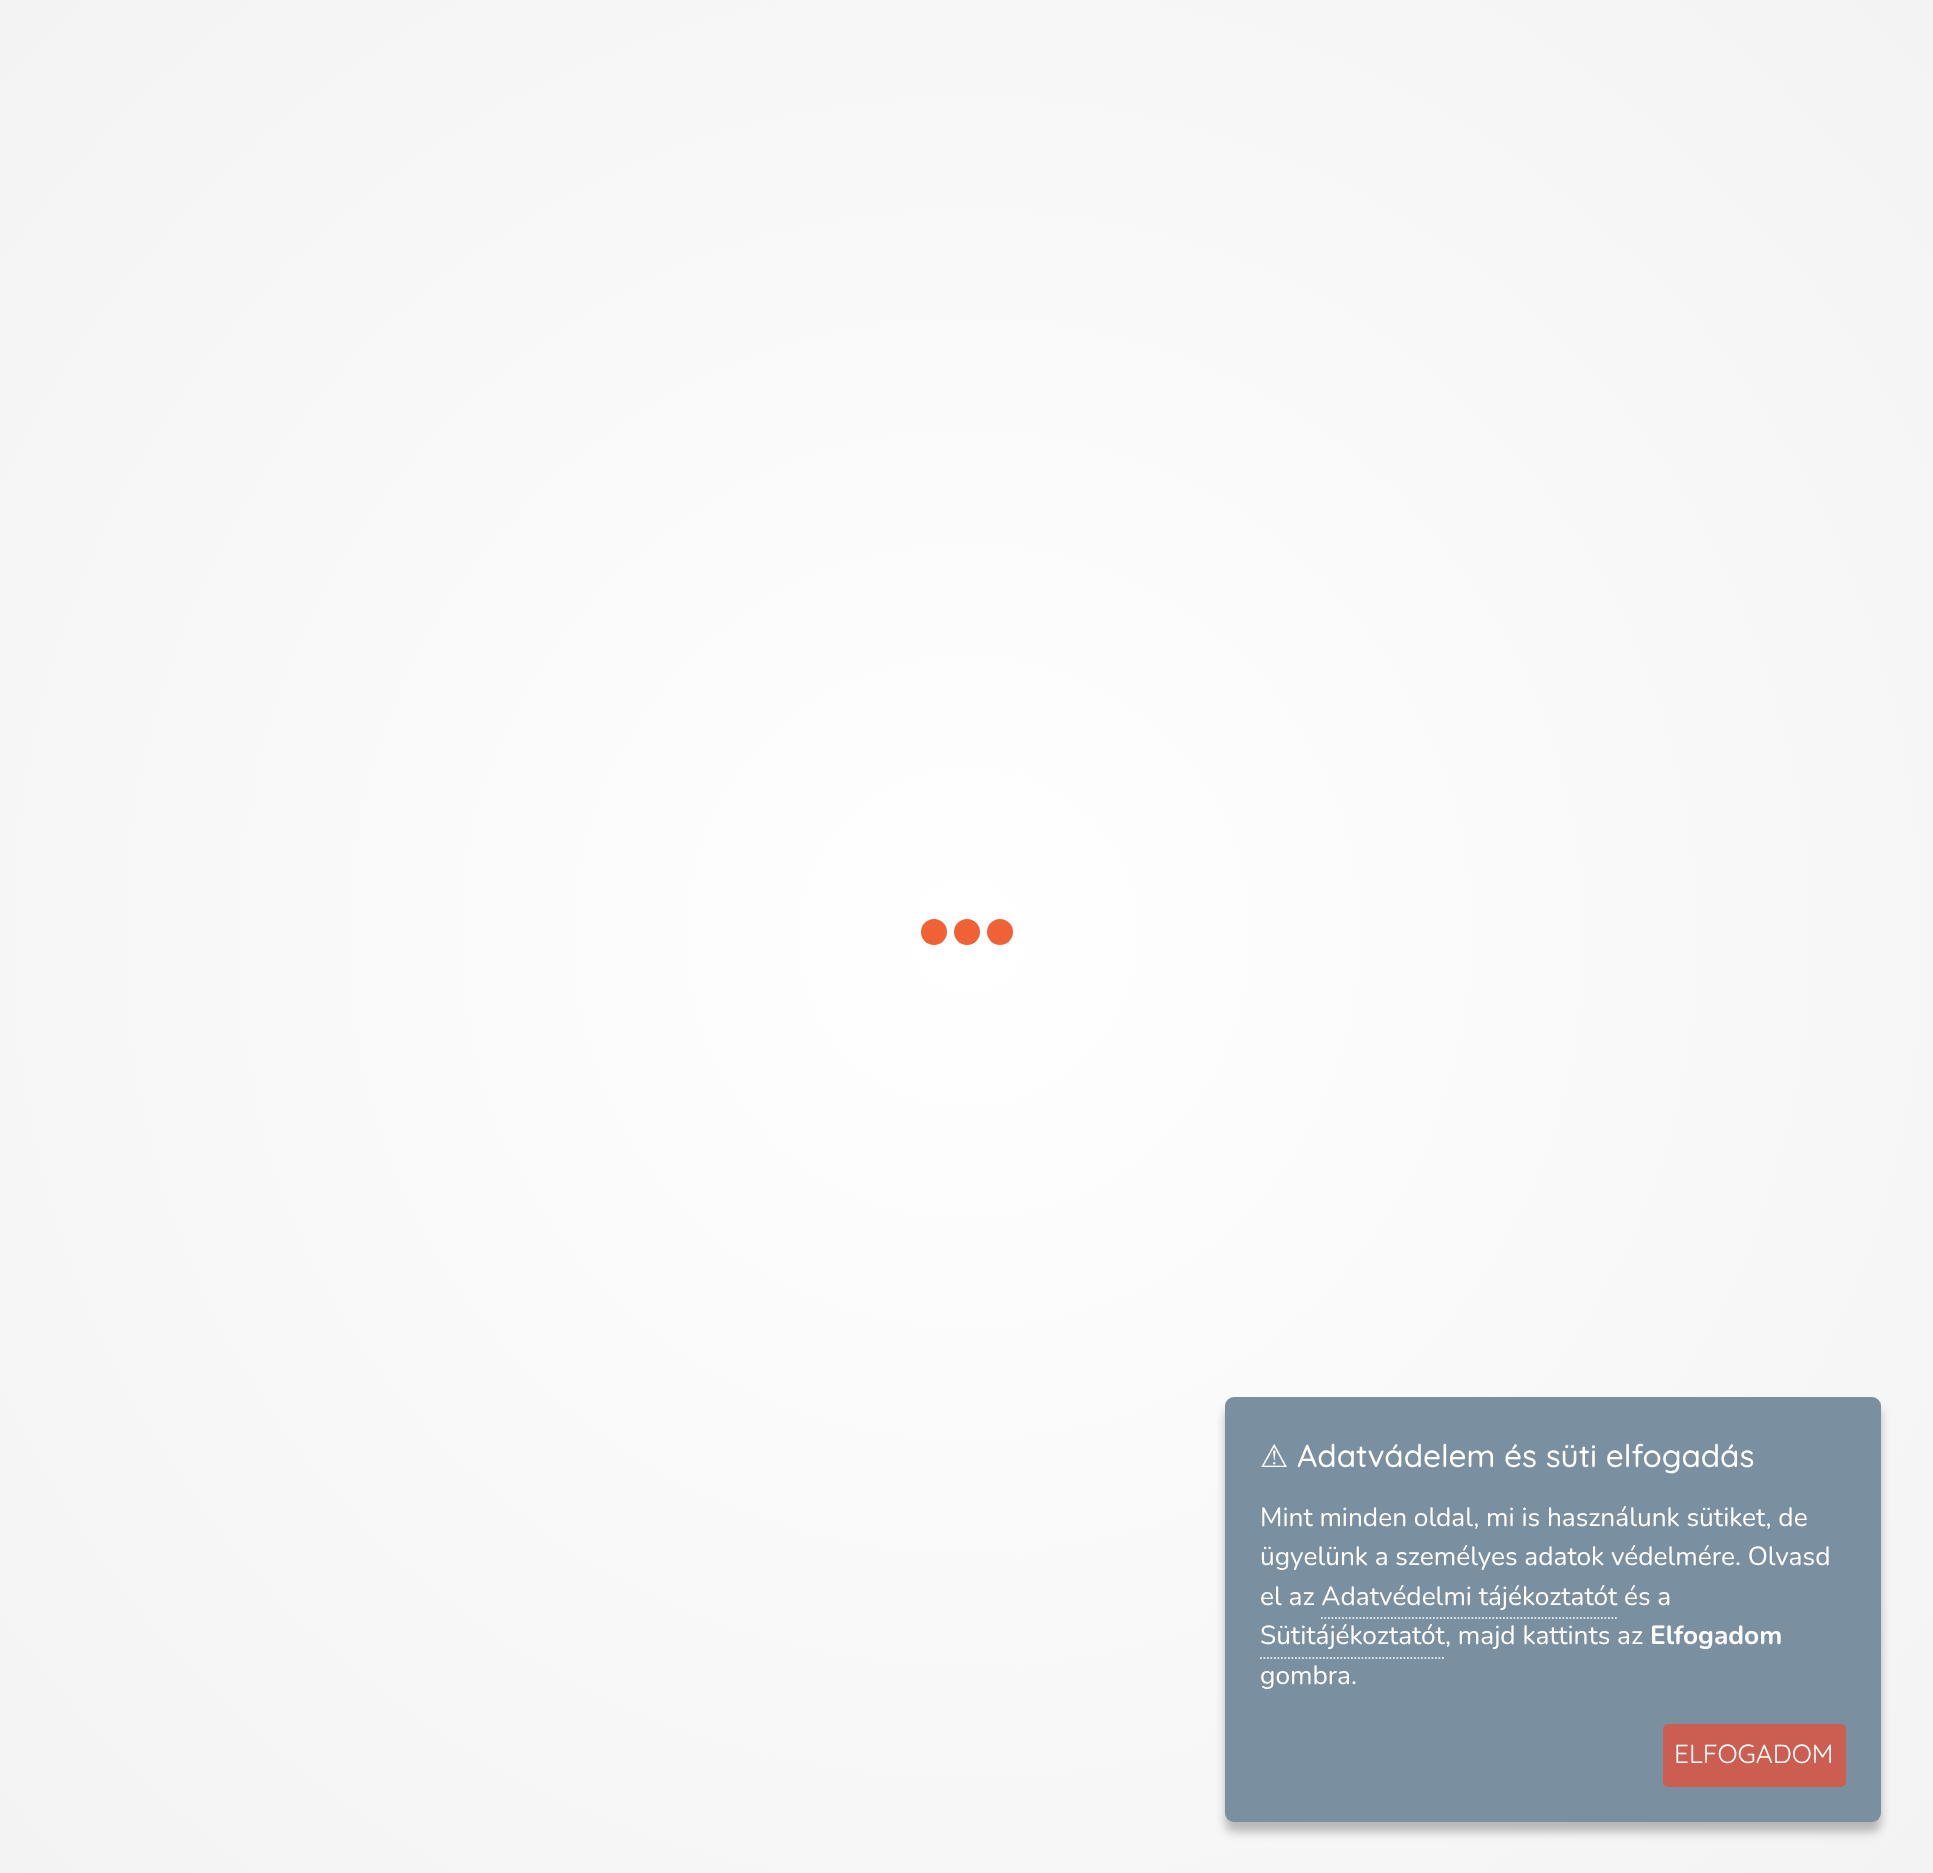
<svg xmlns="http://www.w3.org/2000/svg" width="1933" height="1873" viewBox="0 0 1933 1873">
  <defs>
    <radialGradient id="g1" gradientUnits="userSpaceOnUse" cx="967" cy="937" r="1346"><stop offset="0" stop-color="#ffffff"/><stop offset="1" stop-color="#f3f3f3"/></radialGradient>
    <filter id="blur1" x="-50%" y="-200%" width="200%" height="500%"><feGaussianBlur stdDeviation="5"/></filter>
  </defs>
  <rect width="100%" height="100%" fill="#ffffff"/>
  <rect x="0" y="0" width="1933" height="1873" fill="url(#g1)"/>
  <circle cx="934" cy="932" r="13" fill="#f16136"/>
  <circle cx="967" cy="932" r="13" fill="#f16136"/>
  <circle cx="1000" cy="932" r="13" fill="#f16136"/>
  <rect x="1225" y="1407" width="656" height="425" rx="9" fill="#000000" fill-opacity="0.25" filter="url(#blur1)"/>
  <rect x="1225" y="1397" width="656" height="425" rx="9" fill="#7a8f9f"/>
  <text x="1260" y="1467" font-family="DejaVu Sans" font-size="31.5" fill="#ffffff">⚠</text>
  <text x="1297" y="1467" font-family="Quicksand" font-size="31.5" font-weight="500" fill="#ffffff">Adatvádelem és süti elfogadás</text>
  <text x="1260" y="1526" font-family="Nunito" font-size="26.25" fill="#ffffff">Mint minden oldal, mi is használunk sütiket, de</text>
  <text x="1260" y="1565" font-family="Nunito" font-size="26.25" fill="#ffffff">ügyelünk a személyes adatok védelmére. Olvasd</text>
  <text x="1260" y="1605" font-family="Nunito" font-size="26.25" fill="#ffffff">el az Adatvédelmi tájékoztatót és a</text>
  <path d="M1321 1618H1617" fill="none" stroke="#dee3e7" stroke-width="1.8" stroke-dasharray="1.75 1.75"/>
  <text x="1260" y="1644" font-family="Nunito" font-size="26.25" fill="#ffffff">Sütitájékoztatót</text>
  <path d="M1260 1658H1445.5" fill="none" stroke="#dee3e7" stroke-width="1.8" stroke-dasharray="1.75 1.75"/>
  <text x="1445" y="1644" font-family="Nunito" font-size="26.25" fill="#ffffff">, majd kattints az</text>
  <text x="1650" y="1644" font-family="Nunito" font-size="26.25" font-weight="bold" fill="#ffffff">Elfogadom</text>
  <text x="1260" y="1684" font-family="Nunito" font-size="26.25" fill="#ffffff">gombra.</text>
  <rect x="1663" y="1724" width="183" height="63" rx="5" fill="#cc5e51"/>
  <text x="1674" y="1763" font-family="Quicksand" font-size="26.25" fill="#ffffff">ELFOGADOM</text>
</svg>
